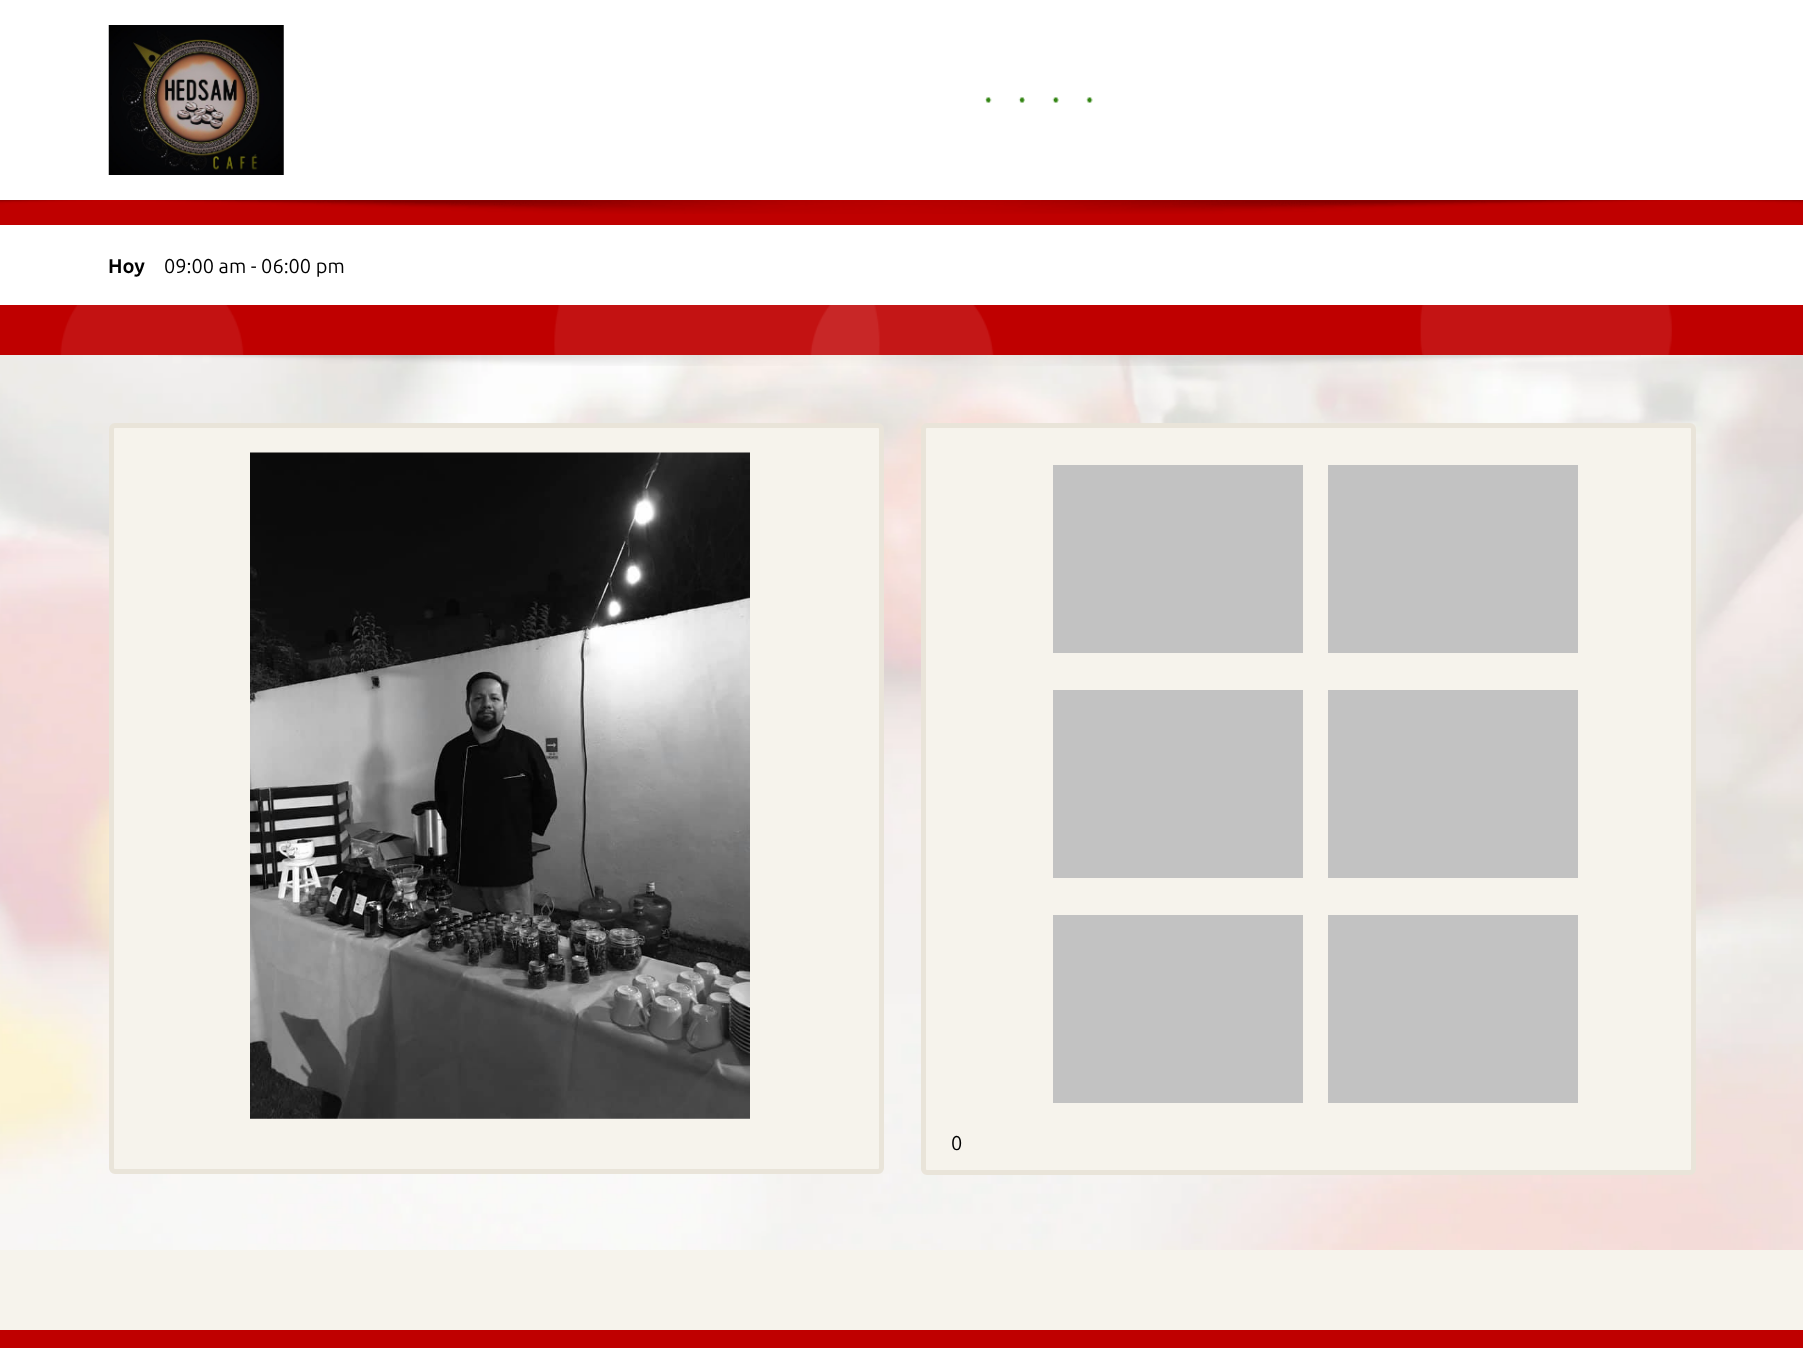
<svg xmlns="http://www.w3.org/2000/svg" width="1803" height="1348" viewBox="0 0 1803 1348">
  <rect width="100%" height="100%" fill="#ffffff"/>
  <image x="0" y="355" width="1803" height="895" href="img1.png"/>
  <image x="108" y="25" width="176" height="150" href="img2.png"/>
  <image x="985" y="97" width="7" height="6" href="img3.png"/>
  <image x="1018" y="97" width="7" height="6" href="img4.png"/>
  <image x="1052" y="97" width="7" height="6" href="img5.png"/>
  <image x="1086" y="97" width="7" height="6" href="img6.png"/>
  <rect x="0" y="200" width="1803" height="25" fill="#bf0000"/>
  <image x="0" y="200" width="1803" height="14" href="img7.png"/>
  <text x="108" y="273" font-family="Ubuntu" font-size="20" font-weight="bold" fill="#000000">Hoy</text>
  <text x="164" y="273" font-family="Ubuntu" font-size="20" fill="#000000">09:00 am - 06:00 pm</text>
  <rect x="0" y="305" width="1803" height="50" fill="#bf0000"/>
  <image x="60" y="305" width="1612" height="50" href="img8.png"/>
  <image x="158" y="355" width="1483" height="11" href="img9.png"/>
  <rect x="111.5" y="425.5" width="770" height="746" rx="3.5" fill="#f6f3ec" stroke="#e9e4d9" stroke-width="5"/>
  <image x="250" y="452" width="500" height="667" href="img10.png"/>
  <rect x="923.5" y="425.5" width="770" height="747" rx="3.5" fill="#f6f3ec" stroke="#e9e4d9" stroke-width="5"/>
  <rect x="1053" y="465" width="250" height="188" fill="#c2c2c2"/>
  <rect x="1328" y="465" width="250" height="188" fill="#c2c2c2"/>
  <rect x="1053" y="690" width="250" height="188" fill="#c2c2c2"/>
  <rect x="1328" y="690" width="250" height="188" fill="#c2c2c2"/>
  <rect x="1053" y="915" width="250" height="188" fill="#c2c2c2"/>
  <rect x="1328" y="915" width="250" height="188" fill="#c2c2c2"/>
  <text x="951" y="1150" font-family="Ubuntu" font-size="20" fill="#000000">0</text>
  <rect x="0" y="1250" width="1803" height="80" fill="#f6f3ec"/>
  <rect x="0" y="1330" width="1803" height="18" fill="#bf0000"/>
</svg>
